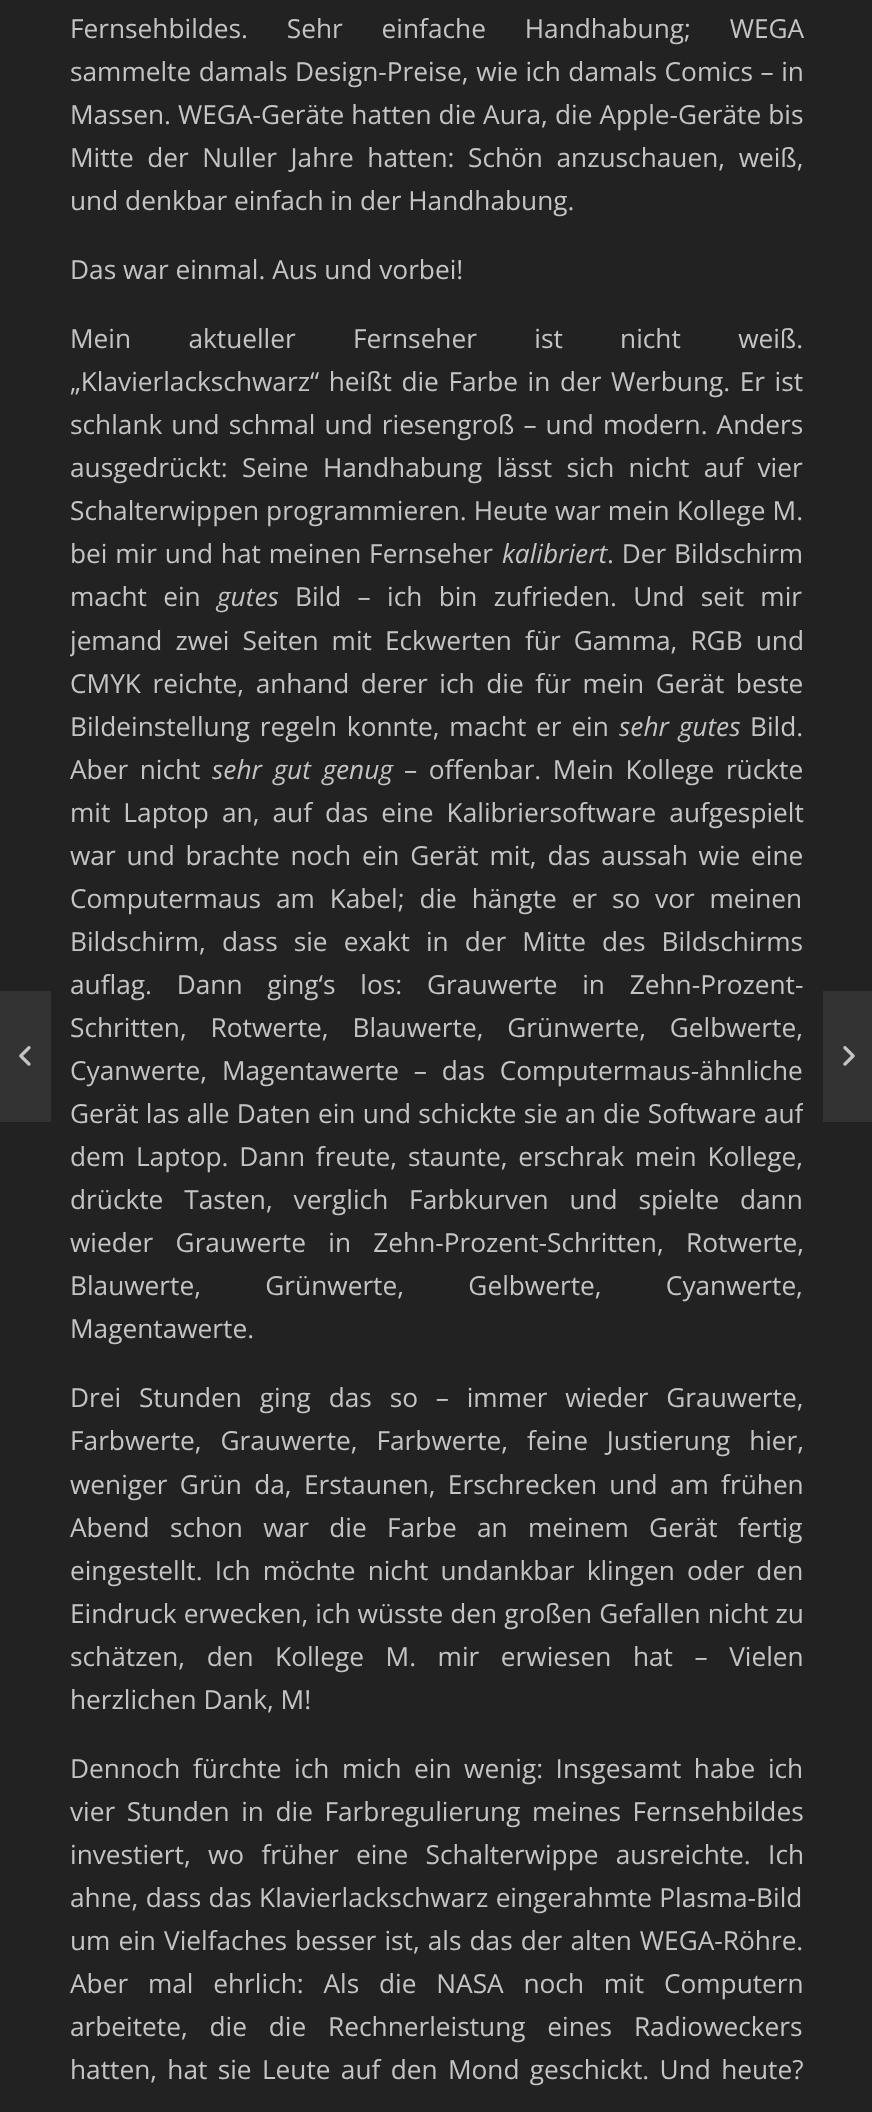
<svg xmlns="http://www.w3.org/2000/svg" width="872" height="2112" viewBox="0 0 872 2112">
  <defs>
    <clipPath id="clip1"><rect x="70" y="0" width="733" height="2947"/></clipPath>
  </defs>
  <rect width="100%" height="100%" fill="#222222"/>
  <rect x="0" y="991" width="51" height="131" fill="#333333"/>
  <image x="19" y="1046" width="12" height="20" href="img1.png"/>
  <text x="70" y="38" word-spacing="32" font-family="Open Sans" font-size="26.25" fill="#c4c4c4">Fernsehbildes. Sehr einfache Handhabung; WEGA</text>
  <text x="70" y="81" word-spacing="0.75" font-family="Open Sans" font-size="26.25" fill="#c4c4c4">sammelte damals Design-Preise, wie ich damals Comics – in</text>
  <text x="70" y="124" word-spacing="0.25" font-family="Open Sans" font-size="26.25" fill="#c4c4c4">Massen. WEGA-Geräte hatten die Aura, die Apple-Geräte bis</text>
  <text x="70" y="167" word-spacing="6.75" font-family="Open Sans" font-size="26.25" fill="#c4c4c4">Mitte der Nuller Jahre hatten: Schön anzuschauen, weiß,</text>
  <text x="70" y="210" font-family="Open Sans" font-size="26.25" fill="#c4c4c4">und denkbar einfach in der Handhabung.</text>
  <text x="70" y="279" font-family="Open Sans" font-size="26.25" fill="#c4c4c4">Das war einmal. Aus und vorbei!</text>
  <text x="70" y="348" word-spacing="50.5" font-family="Open Sans" font-size="26.25" fill="#c4c4c4">Mein aktueller Fernseher ist nicht weiß.</text>
  <text x="70" y="391" word-spacing="2.75" font-family="Open Sans" font-size="26.25" fill="#c4c4c4">„Klavierlackschwarz“ heißt die Farbe in der Werbung. Er ist</text>
  <text x="70" y="434" word-spacing="2.25" font-family="Open Sans" font-size="26.25" fill="#c4c4c4">schlank und schmal und riesengroß – und modern. Anders</text>
  <text x="70" y="477" word-spacing="7.5" font-family="Open Sans" font-size="26.25" fill="#c4c4c4">ausgedrückt: Seine Handhabung lässt sich nicht auf vier</text>
  <text x="70" y="520" word-spacing="0.25" font-family="Open Sans" font-size="26.25" fill="#c4c4c4">Schalterwippen programmieren. Heute war mein Kollege M.</text>
  <text x="70" y="563" word-spacing="1" font-family="Open Sans" font-size="26.25" fill="#c4c4c4">bei mir und hat meinen Fernseher</text>
  <text x="502" y="563" font-family="Open Sans" font-size="26.25" font-style="italic" fill="#c4c4c4">kalibriert</text>
  <text x="607" y="563" word-spacing="1" font-family="Open Sans" font-size="26.25" fill="#c4c4c4">. Der Bildschirm</text>
  <text x="70" y="606" word-spacing="9.5" font-family="Open Sans" font-size="26.25" fill="#c4c4c4">macht ein</text>
  <text x="217" y="606" font-family="Open Sans" font-size="26.25" font-style="italic" fill="#c4c4c4">gutes</text>
  <text x="295" y="606" word-spacing="9.5" font-family="Open Sans" font-size="26.25" fill="#c4c4c4">Bild – ich bin zufrieden. Und seit mir</text>
  <g clip-path="url(#clip1)">
    <text x="70" y="650" word-spacing="6.25" font-family="Open Sans" font-size="26.25" fill="#c4c4c4">jemand zwei Seiten mit Eckwerten für Gamma, RGB und</text>
  </g>
  <text x="70" y="693" word-spacing="4.75" font-family="Open Sans" font-size="26.25" fill="#c4c4c4">CMYK reichte, anhand derer ich die für mein Gerät beste</text>
  <text x="70" y="736" word-spacing="3" font-family="Open Sans" font-size="26.25" fill="#c4c4c4">Bildeinstellung regeln konnte, macht er ein</text>
  <text x="619" y="736" word-spacing="3" font-family="Open Sans" font-size="26.25" font-style="italic" fill="#c4c4c4">sehr gutes</text>
  <text x="750" y="736" font-family="Open Sans" font-size="26.25" fill="#c4c4c4">Bild.</text>
  <text x="70" y="779" word-spacing="4.75" font-family="Open Sans" font-size="26.25" fill="#c4c4c4">Aber nicht</text>
  <text x="212" y="779" word-spacing="4.75" font-family="Open Sans" font-size="26.25" font-style="italic" fill="#c4c4c4">sehr gut genug</text>
  <text x="404" y="779" word-spacing="4.75" font-family="Open Sans" font-size="26.25" fill="#c4c4c4">– offenbar. Mein Kollege rückte</text>
  <text x="70" y="822" word-spacing="6.25" font-family="Open Sans" font-size="26.25" fill="#c4c4c4">mit Laptop an, auf das eine Kalibriersoftware aufgespielt</text>
  <text x="70" y="865" word-spacing="4" font-family="Open Sans" font-size="26.25" fill="#c4c4c4">war und brachte noch ein Gerät mit, das aussah wie eine</text>
  <text x="70" y="908" word-spacing="8" font-family="Open Sans" font-size="26.25" fill="#c4c4c4">Computermaus am Kabel; die hängte er so vor meinen</text>
  <text x="70" y="951" word-spacing="9.25" font-family="Open Sans" font-size="26.25" fill="#c4c4c4">Bildschirm, dass sie exakt in der Mitte des Bildschirms</text>
  <text x="70" y="994" word-spacing="18" font-family="Open Sans" font-size="26.25" fill="#c4c4c4">auflag. Dann ging‘s los: Grauwerte in Zehn-Prozent-</text>
  <text x="70" y="1037" word-spacing="17" font-family="Open Sans" font-size="26.25" fill="#c4c4c4">Schritten, Rotwerte, Blauwerte, Grünwerte, Gelbwerte,</text>
  <text x="70" y="1080" word-spacing="8" font-family="Open Sans" font-size="26.25" fill="#c4c4c4">Cyanwerte, Magentawerte – das Computermaus-ähnliche</text>
  <g clip-path="url(#clip1)">
    <text x="70" y="1123" word-spacing="0.5" font-family="Open Sans" font-size="26.25" fill="#c4c4c4">Gerät las alle Daten ein und schickte sie an die Software auf</text>
  </g>
  <text x="70" y="1166" word-spacing="4" font-family="Open Sans" font-size="26.25" fill="#c4c4c4">dem Laptop. Dann freute, staunte, erschrak mein Kollege,</text>
  <text x="70" y="1209" word-spacing="14" font-family="Open Sans" font-size="26.25" fill="#c4c4c4">drückte Tasten, verglich Farbkurven und spielte dann</text>
  <text x="70" y="1252" word-spacing="15.5" font-family="Open Sans" font-size="26.25" fill="#c4c4c4">wieder Grauwerte in Zehn-Prozent-Schritten, Rotwerte,</text>
  <text x="70" y="1295" word-spacing="57.5" font-family="Open Sans" font-size="26.25" fill="#c4c4c4">Blauwerte, Grünwerte, Gelbwerte, Cyanwerte,</text>
  <text x="70" y="1338" font-family="Open Sans" font-size="26.25" fill="#c4c4c4">Magentawerte.</text>
  <text x="70" y="1407" word-spacing="11" font-family="Open Sans" font-size="26.25" fill="#c4c4c4">Drei Stunden ging das so – immer wieder Grauwerte,</text>
  <text x="70" y="1450" word-spacing="12" font-family="Open Sans" font-size="26.25" fill="#c4c4c4">Farbwerte, Grauwerte, Farbwerte, feine Justierung hier,</text>
  <text x="70" y="1494" word-spacing="5.5" font-family="Open Sans" font-size="26.25" fill="#c4c4c4">weniger Grün da, Erstaunen, Erschrecken und am frühen</text>
  <text x="70" y="1537" word-spacing="13.5" font-family="Open Sans" font-size="26.25" fill="#c4c4c4">Abend schon war die Farbe an meinem Gerät fertig</text>
  <text x="70" y="1580" word-spacing="5.25" font-family="Open Sans" font-size="26.25" fill="#c4c4c4">eingestellt. Ich möchte nicht undankbar klingen oder den</text>
  <text x="70" y="1623" word-spacing="0.25" font-family="Open Sans" font-size="26.25" fill="#c4c4c4">Eindruck erwecken, ich wüsste den großen Gefallen nicht zu</text>
  <text x="70" y="1666" word-spacing="14.75" font-family="Open Sans" font-size="26.25" fill="#c4c4c4">schätzen, den Kollege M. mir erwiesen hat – Vielen</text>
  <text x="70" y="1709" font-family="Open Sans" font-size="26.25" fill="#c4c4c4">herzlichen Dank, M!</text>
  <text x="70" y="1778" word-spacing="5.75" font-family="Open Sans" font-size="26.25" fill="#c4c4c4">Dennoch fürchte ich mich ein wenig: Insgesamt habe ich</text>
  <text x="70" y="1821" word-spacing="4.75" font-family="Open Sans" font-size="26.25" fill="#c4c4c4">vier Stunden in die Farbregulierung meines Fernsehbildes</text>
  <text x="70" y="1864" word-spacing="10.5" font-family="Open Sans" font-size="26.25" fill="#c4c4c4">investiert, wo früher eine Schalterwippe ausreichte. Ich</text>
  <text x="70" y="1907" word-spacing="0.5" font-family="Open Sans" font-size="26.25" fill="#c4c4c4">ahne, dass das Klavierlackschwarz eingerahmte Plasma-Bild</text>
  <text x="70" y="1950" word-spacing="1.25" font-family="Open Sans" font-size="26.25" fill="#c4c4c4">um ein Vielfaches besser ist, als das der alten WEGA-Röhre.</text>
  <text x="70" y="1993" word-spacing="13" font-family="Open Sans" font-size="26.25" fill="#c4c4c4">Aber mal ehrlich: Als die NASA noch mit Computern</text>
  <text x="70" y="2036" word-spacing="15" font-family="Open Sans" font-size="26.25" fill="#c4c4c4">arbeitete, die die Rechnerleistung eines Radioweckers</text>
  <text x="70" y="2079" word-spacing="3.5" font-family="Open Sans" font-size="26.25" fill="#c4c4c4">hatten, hat sie Leute auf den Mond geschickt. Und heute?</text>
  <rect x="823" y="991" width="49" height="131" fill="#333333"/>
  <image x="843" y="1046" width="12" height="20" href="img2.png"/>
</svg>
